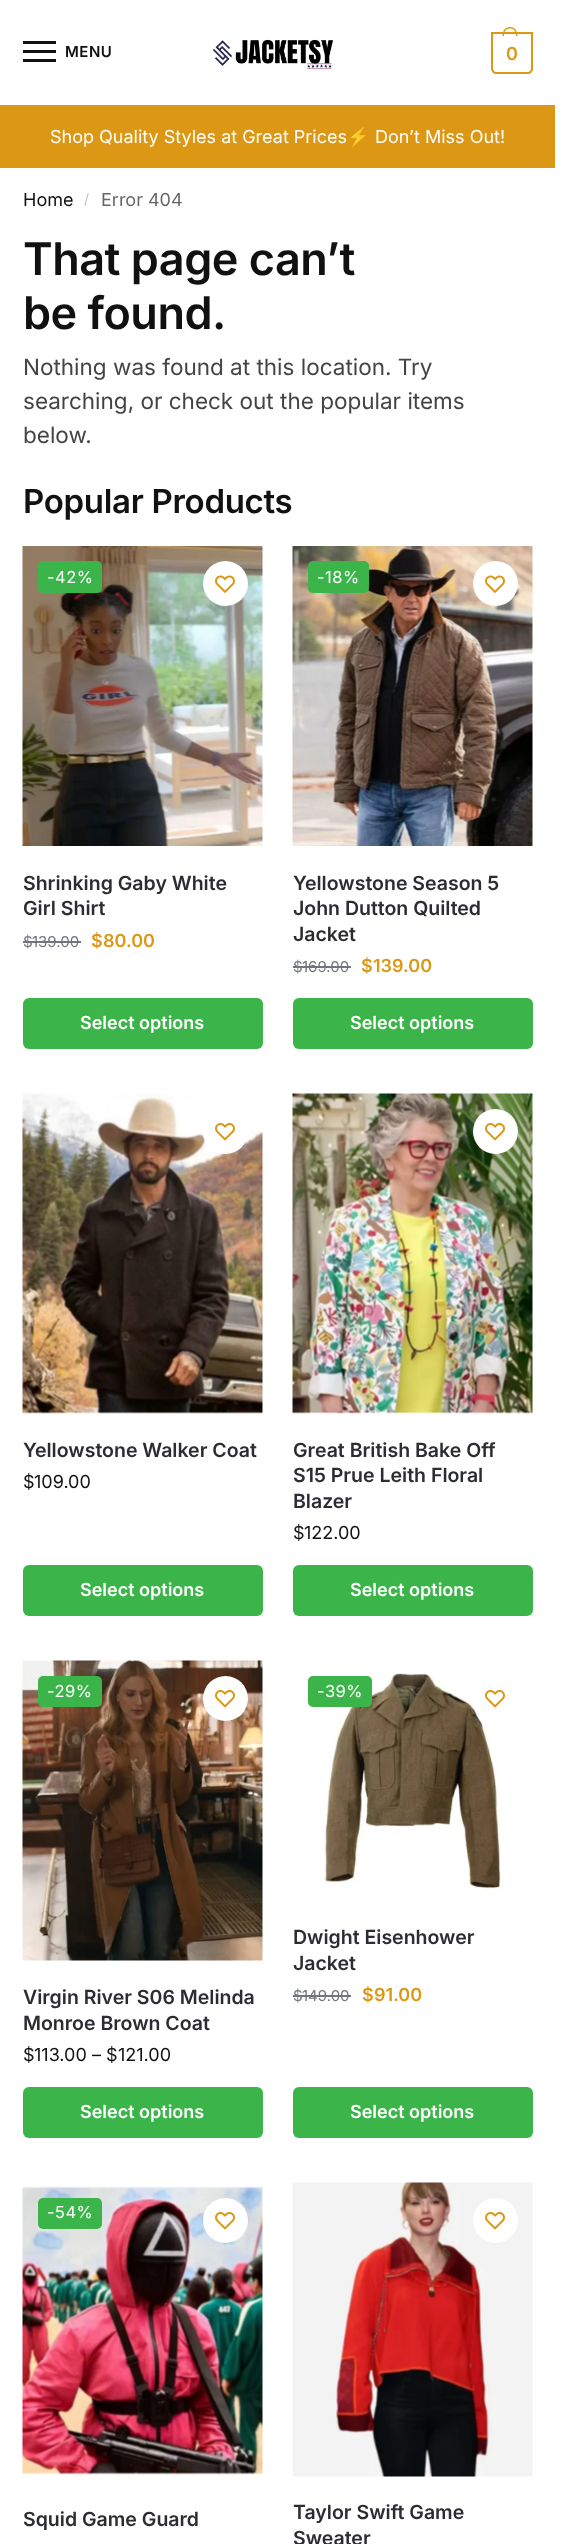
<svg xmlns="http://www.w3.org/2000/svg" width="577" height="2544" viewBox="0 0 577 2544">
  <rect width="100%" height="100%" fill="#ffffff"/>
  <rect x="23" y="41" width="33" height="3" fill="#111111"/>
  <rect x="23" y="50" width="33" height="3" fill="#111111"/>
  <text x="65" y="57" font-family="Inter" font-size="15" font-weight="600" letter-spacing="0.5" fill="#111111">MENU</text>
  <rect x="23" y="59" width="33" height="3" fill="#111111"/>
  <image x="212" y="38" width="123" height="31" href="img1.png"/>
  <path d="M492 33H532V69C532 71 530 73 528 73H496C494 73 492 71 492 69Z" fill="none" stroke="#dc9814" stroke-width="2"/>
  <path d="M510 27C515.5 27 517.5 31.5 517.5 36H502.5C502.5 31.5 504.5 27 510 27ZM510 28.5C514.5 28.5 516 32 516 36H504C504 32 505.5 28.5 510 28.5Z" fill="#dc9814" fill-rule="evenodd"/>
  <text x="506" y="60" font-family="Inter" font-size="18" font-weight="600" letter-spacing="-1" fill="#dc9814">0</text>
  <rect x="0" y="105" width="555" height="63" fill="#dc9814"/>
  <text x="50" y="143" font-family="Inter" font-size="18" fill="#ffffff">Shop Quality Styles at Great Prices</text>
  <text x="347" y="143" font-family="Noto Color Emoji" font-size="18" fill="#ffffff">⚡️</text>
  <text x="375" y="143" font-family="Inter" font-size="18" fill="#ffffff">Don’t Miss Out!</text>
  <text x="23" y="206" font-family="Inter" font-size="18" fill="#111111">Home</text>
  <text x="84" y="204" font-family="Inter" font-size="14" fill="#c2c2c2">/</text>
  <text x="101" y="206" font-family="Inter" font-size="18" fill="#666666">Error 404</text>
  <text x="23" y="275" font-family="Inter" font-size="45" font-weight="600" letter-spacing="-0.5" fill="#111111">That page can’t</text>
  <text x="23" y="329" font-family="Inter" font-size="45" font-weight="600" letter-spacing="-0.5" fill="#111111">be found.</text>
  <text x="23" y="375" font-family="Inter" font-size="22.5" fill="#444444">Nothing was found at this location. Try</text>
  <text x="23" y="409" font-family="Inter" font-size="22.5" fill="#444444">searching, or check out the popular items</text>
  <text x="23" y="443" font-family="Inter" font-size="22.5" fill="#444444">below.</text>
  <text x="23" y="513" font-family="Inter" font-size="33" font-weight="600" letter-spacing="-0.3" fill="#111111">Popular Products</text>
  <image x="22" y="546" width="241" height="300" href="img2.png"/>
  <rect x="38" y="561" width="64" height="32" rx="5" fill="#3bb54a"/>
  <text x="47" y="583" font-family="Inter" font-size="16.5" letter-spacing="0.5" fill="#ffffff">-42%</text>
  <circle cx="225.5" cy="583.5" r="22.5" fill="#ffffff"/>
  <image x="215" y="575" width="20" height="18" href="img3.png"/>
  <text x="23" y="890" font-family="Inter" font-size="19.5" font-weight="600" fill="#2c2d33">Shrinking Gaby White</text>
  <text x="23" y="915" font-family="Inter" font-size="19.5" font-weight="600" fill="#2c2d33">Girl Shirt</text>
  <text x="23" y="947" font-family="Inter" font-size="15" fill="#72767c">$</text>
  <text x="32" y="947" font-family="Inter" font-size="15" fill="#72767c">139.00</text>
  <rect x="33" y="941" width="48" height="2" fill="#72767c"/>
  <rect x="23" y="941" width="10" height="2" fill="#72767c"/>
  <text x="91" y="947" font-family="Inter" font-size="18" font-weight="600" fill="#dc9814">$</text>
  <text x="103" y="947" font-family="Inter" font-size="18" font-weight="600" fill="#dc9814">80.00</text>
  <rect x="23" y="998" width="240" height="51" rx="6" fill="#3bb54a"/>
  <text x="80" y="1029" font-family="Inter" font-size="18" font-weight="600" fill="#ffffff">Select options</text>
  <image x="292" y="546" width="241" height="300" href="img4.png"/>
  <rect x="308" y="561" width="61" height="32" rx="5" fill="#3bb54a"/>
  <text x="317" y="583" font-family="Inter" font-size="16.5" letter-spacing="0.5" fill="#ffffff">-18%</text>
  <circle cx="495.5" cy="583.5" r="22.5" fill="#ffffff"/>
  <image x="485" y="575" width="20" height="18" href="img3.png"/>
  <text x="293" y="890" font-family="Inter" font-size="19.5" font-weight="600" fill="#2c2d33">Yellowstone Season 5</text>
  <text x="293" y="915" font-family="Inter" font-size="19.5" font-weight="600" fill="#2c2d33">John Dutton Quilted</text>
  <text x="293" y="941" font-family="Inter" font-size="19.5" font-weight="600" fill="#2c2d33">Jacket</text>
  <text x="293" y="972" font-family="Inter" font-size="15" fill="#72767c">$</text>
  <text x="302" y="972" font-family="Inter" font-size="15" fill="#72767c">169.00</text>
  <rect x="303" y="966" width="48" height="2" fill="#72767c"/>
  <rect x="293" y="966" width="10" height="2" fill="#72767c"/>
  <text x="361" y="972" font-family="Inter" font-size="18" font-weight="600" fill="#dc9814">$</text>
  <text x="373" y="972" font-family="Inter" font-size="18" font-weight="600" fill="#dc9814">139.00</text>
  <rect x="293" y="998" width="240" height="51" rx="6" fill="#3bb54a"/>
  <text x="350" y="1029" font-family="Inter" font-size="18" font-weight="600" fill="#ffffff">Select options</text>
  <image x="22" y="1093" width="241" height="321" href="img5.png"/>
  <circle cx="225.5" cy="1131.5" r="22.5" fill="#ffffff"/>
  <image x="215" y="1123" width="20" height="18" href="img6.png"/>
  <text x="23" y="1457" font-family="Inter" font-size="19.5" font-weight="600" fill="#2c2d33">Yellowstone Walker Coat</text>
  <text x="23" y="1488" font-family="Inter" font-size="18" fill="#111111">$</text>
  <text x="34" y="1488" font-family="Inter" font-size="18" fill="#111111">109.00</text>
  <rect x="23" y="1565" width="240" height="51" rx="6" fill="#3bb54a"/>
  <text x="80" y="1596" font-family="Inter" font-size="18" font-weight="600" fill="#ffffff">Select options</text>
  <image x="292" y="1093" width="241" height="321" href="img7.png"/>
  <circle cx="495.5" cy="1131.5" r="22.5" fill="#ffffff"/>
  <image x="485" y="1123" width="20" height="18" href="img6.png"/>
  <text x="293" y="1457" font-family="Inter" font-size="19.5" font-weight="600" fill="#2c2d33">Great British Bake Off</text>
  <text x="293" y="1482" font-family="Inter" font-size="19.5" font-weight="600" fill="#2c2d33">S15 Prue Leith Floral</text>
  <text x="293" y="1508" font-family="Inter" font-size="19.5" font-weight="600" fill="#2c2d33">Blazer</text>
  <text x="293" y="1539" font-family="Inter" font-size="18" fill="#111111">$</text>
  <text x="304" y="1539" font-family="Inter" font-size="18" fill="#111111">122.00</text>
  <rect x="293" y="1565" width="240" height="51" rx="6" fill="#3bb54a"/>
  <text x="350" y="1596" font-family="Inter" font-size="18" font-weight="600" fill="#ffffff">Select options</text>
  <image x="22" y="1660" width="241" height="301" href="img8.png"/>
  <rect x="38" y="1676" width="64" height="31" rx="5" fill="#3bb54a"/>
  <text x="47" y="1697" font-family="Inter" font-size="16.5" letter-spacing="0.5" fill="#ffffff">-29%</text>
  <circle cx="225.5" cy="1698.5" r="22.5" fill="#ffffff"/>
  <image x="215" y="1690" width="20" height="18" href="img6.png"/>
  <text x="23" y="2004" font-family="Inter" font-size="19.5" font-weight="600" fill="#2c2d33">Virgin River S06 Melinda</text>
  <text x="23" y="2030" font-family="Inter" font-size="19.5" font-weight="600" fill="#2c2d33">Monroe Brown Coat</text>
  <text x="23" y="2061" font-family="Inter" font-size="18" fill="#111111">$</text>
  <text x="34" y="2061" font-family="Inter" font-size="18" fill="#111111">113.00</text>
  <text x="92" y="2061" font-family="Inter" font-size="18" fill="#111111">– $</text>
  <text x="118" y="2061" font-family="Inter" font-size="18" fill="#111111">121.00</text>
  <rect x="23" y="2087" width="240" height="51" rx="6" fill="#3bb54a"/>
  <text x="80" y="2118" font-family="Inter" font-size="18" font-weight="600" fill="#ffffff">Select options</text>
  <image x="324" y="1673" width="177" height="217" href="img9.png"/>
  <rect x="308" y="1676" width="64" height="31" rx="5" fill="#3bb54a"/>
  <text x="317" y="1697" font-family="Inter" font-size="16.5" letter-spacing="0.5" fill="#ffffff">-39%</text>
  <circle cx="495.5" cy="1698.5" r="22.5" fill="#ffffff"/>
  <image x="485" y="1690" width="20" height="18" href="img6.png"/>
  <text x="293" y="1944" font-family="Inter" font-size="19.5" font-weight="600" fill="#2c2d33">Dwight Eisenhower</text>
  <text x="293" y="1970" font-family="Inter" font-size="19.5" font-weight="600" fill="#2c2d33">Jacket</text>
  <text x="293" y="2001" font-family="Inter" font-size="15" fill="#72767c">$</text>
  <text x="302" y="2001" font-family="Inter" font-size="15" fill="#72767c">149.00</text>
  <rect x="303" y="1995" width="48" height="2" fill="#72767c"/>
  <rect x="293" y="1995" width="10" height="2" fill="#72767c"/>
  <text x="362" y="2001" font-family="Inter" font-size="18" font-weight="600" fill="#dc9814">$</text>
  <text x="374" y="2001" font-family="Inter" font-size="18" font-weight="600" fill="#dc9814">91.00</text>
  <rect x="293" y="2087" width="240" height="51" rx="6" fill="#3bb54a"/>
  <text x="350" y="2118" font-family="Inter" font-size="18" font-weight="600" fill="#ffffff">Select options</text>
  <image x="22" y="2186" width="241" height="290" href="img10.png"/>
  <rect x="38" y="2198" width="64" height="31" rx="5" fill="#3bb54a"/>
  <text x="47" y="2218" font-family="Inter" font-size="16.5" letter-spacing="0.5" fill="#ffffff">-54%</text>
  <circle cx="225.5" cy="2220.5" r="22.5" fill="#ffffff"/>
  <image x="215" y="2212" width="20" height="18" href="img6.png"/>
  <text x="23" y="2526" font-family="Inter" font-size="19.5" font-weight="600" fill="#2c2d33">Squid Game Guard</text>
  <image x="292" y="2182" width="241" height="295" href="img11.png"/>
  <circle cx="495.5" cy="2220.5" r="22.5" fill="#ffffff"/>
  <image x="485" y="2212" width="20" height="18" href="img6.png"/>
  <text x="293" y="2519" font-family="Inter" font-size="19.5" font-weight="600" fill="#2c2d33">Taylor Swift Game</text>
  <text x="293" y="2545" font-family="Inter" font-size="19.5" font-weight="600" fill="#2c2d33">Sweater</text>
</svg>
